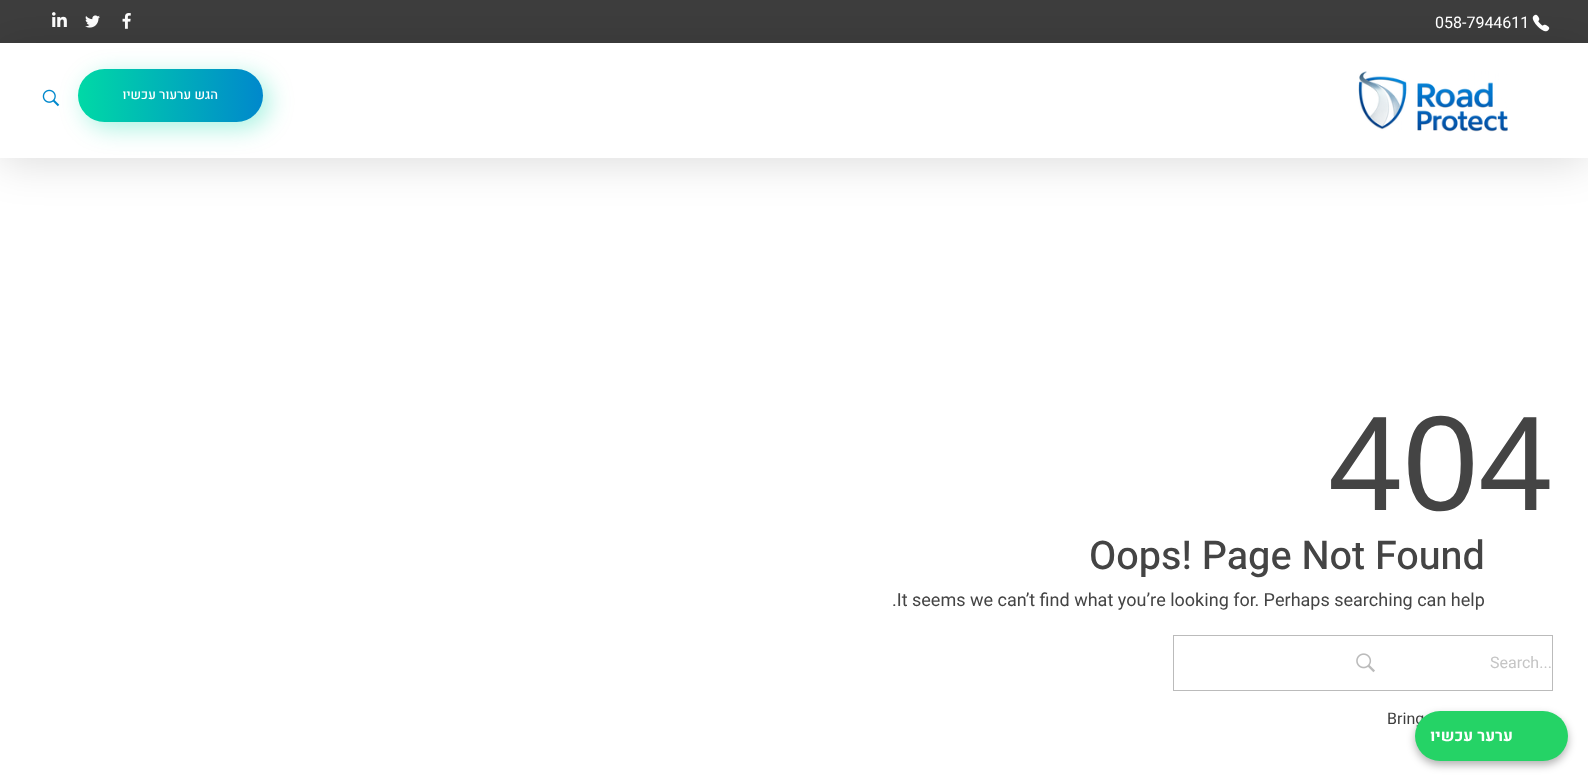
<svg xmlns="http://www.w3.org/2000/svg" width="1588" height="781" viewBox="0 0 1588 781">
  <defs>
    <clipPath id="clip1"><path d="M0 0H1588V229H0ZM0 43H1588V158H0Z" clip-rule="evenodd"/></clipPath>
    <filter id="blur1" x="-50%" y="-200%" width="200%" height="500%"><feGaussianBlur stdDeviation="22"/></filter>
    <filter id="blur2" x="-50%" y="-200%" width="200%" height="500%"><feGaussianBlur stdDeviation="12.5"/></filter>
    <linearGradient id="g1" gradientUnits="userSpaceOnUse" x1="263" y1="94" x2="78" y2="97"><stop offset="0" stop-color="#0088cc"/><stop offset="1" stop-color="#00d9a6"/></linearGradient>
    <filter id="blur3" x="-50%" y="-200%" width="200%" height="500%"><feGaussianBlur stdDeviation="4"/></filter>
  </defs>
  <rect width="100%" height="100%" fill="#ffffff"/>
  <rect x="0" y="0" width="1588" height="43" fill="#3d3d3d"/>
  <image x="52" y="12" width="15" height="15" href="img1.png"/>
  <image x="85" y="15" width="15" height="13" href="img2.png"/>
  <image x="122" y="13" width="9" height="16" href="img3.png"/>
  <g clip-path="url(#clip1)">
    <rect x="0" y="47" width="1588" height="115" fill="#000000" fill-opacity="0.14" filter="url(#blur1)"/>
  </g>
  <text x="1435" y="28" font-family="Heebo" font-size="16" fill="#ffffff">058-7944611</text>
  <image x="1532" y="14" width="18" height="18" href="img4.png"/>
  <rect x="84" y="75" width="185" height="53" rx="26.5" fill="#00d9a6" fill-opacity="0.35" filter="url(#blur2)"/>
  <image x="42" y="89" width="18" height="18" href="img5.png"/>
  <rect x="78" y="69" width="185" height="53" rx="26.5" fill="url(#g1)"/>
  <text x="218" y="99" font-family="Heebo" font-size="13" font-weight="500" direction="rtl" fill="#ffffff">הגש ערעור עכשיו</text>
  <image x="1358" y="71" width="150" height="61" href="img6.png"/>
  <text x="1328" y="510" font-family="Liberation Sans" font-size="135" fill="#444444">404</text>
  <text x="1089" y="569" font-family="Heebo" font-size="39.6" font-weight="500" fill="#444444">Oops! Page Not Found</text>
  <text x="892" y="606" font-family="Heebo" font-size="18" fill="#444444">.It seems we can’t find what you’re looking for. Perhaps searching can help</text>
  <rect x="1173.5" y="635.5" width="379" height="55" fill="none" stroke="#bbbbbb"/>
  <image x="1356" y="653" width="19" height="20" href="img7.png"/>
  <text x="1490" y="668" font-family="Heebo" font-size="16" fill="#c5c5c5">Search...</text>
  <text x="1387" y="724" font-family="Heebo" font-size="16" fill="#3d3d3d">Bring</text>
  <rect x="1415" y="715" width="153" height="50" rx="25" fill="#000000" fill-opacity="0.3" filter="url(#blur3)"/>
  <rect x="1415" y="711" width="153" height="50" rx="25" fill="#25d366"/>
  <text x="1513" y="741" font-family="Heebo" font-size="16" font-weight="bold" direction="rtl" fill="#ffffff">ערער עכשיו</text>
</svg>
